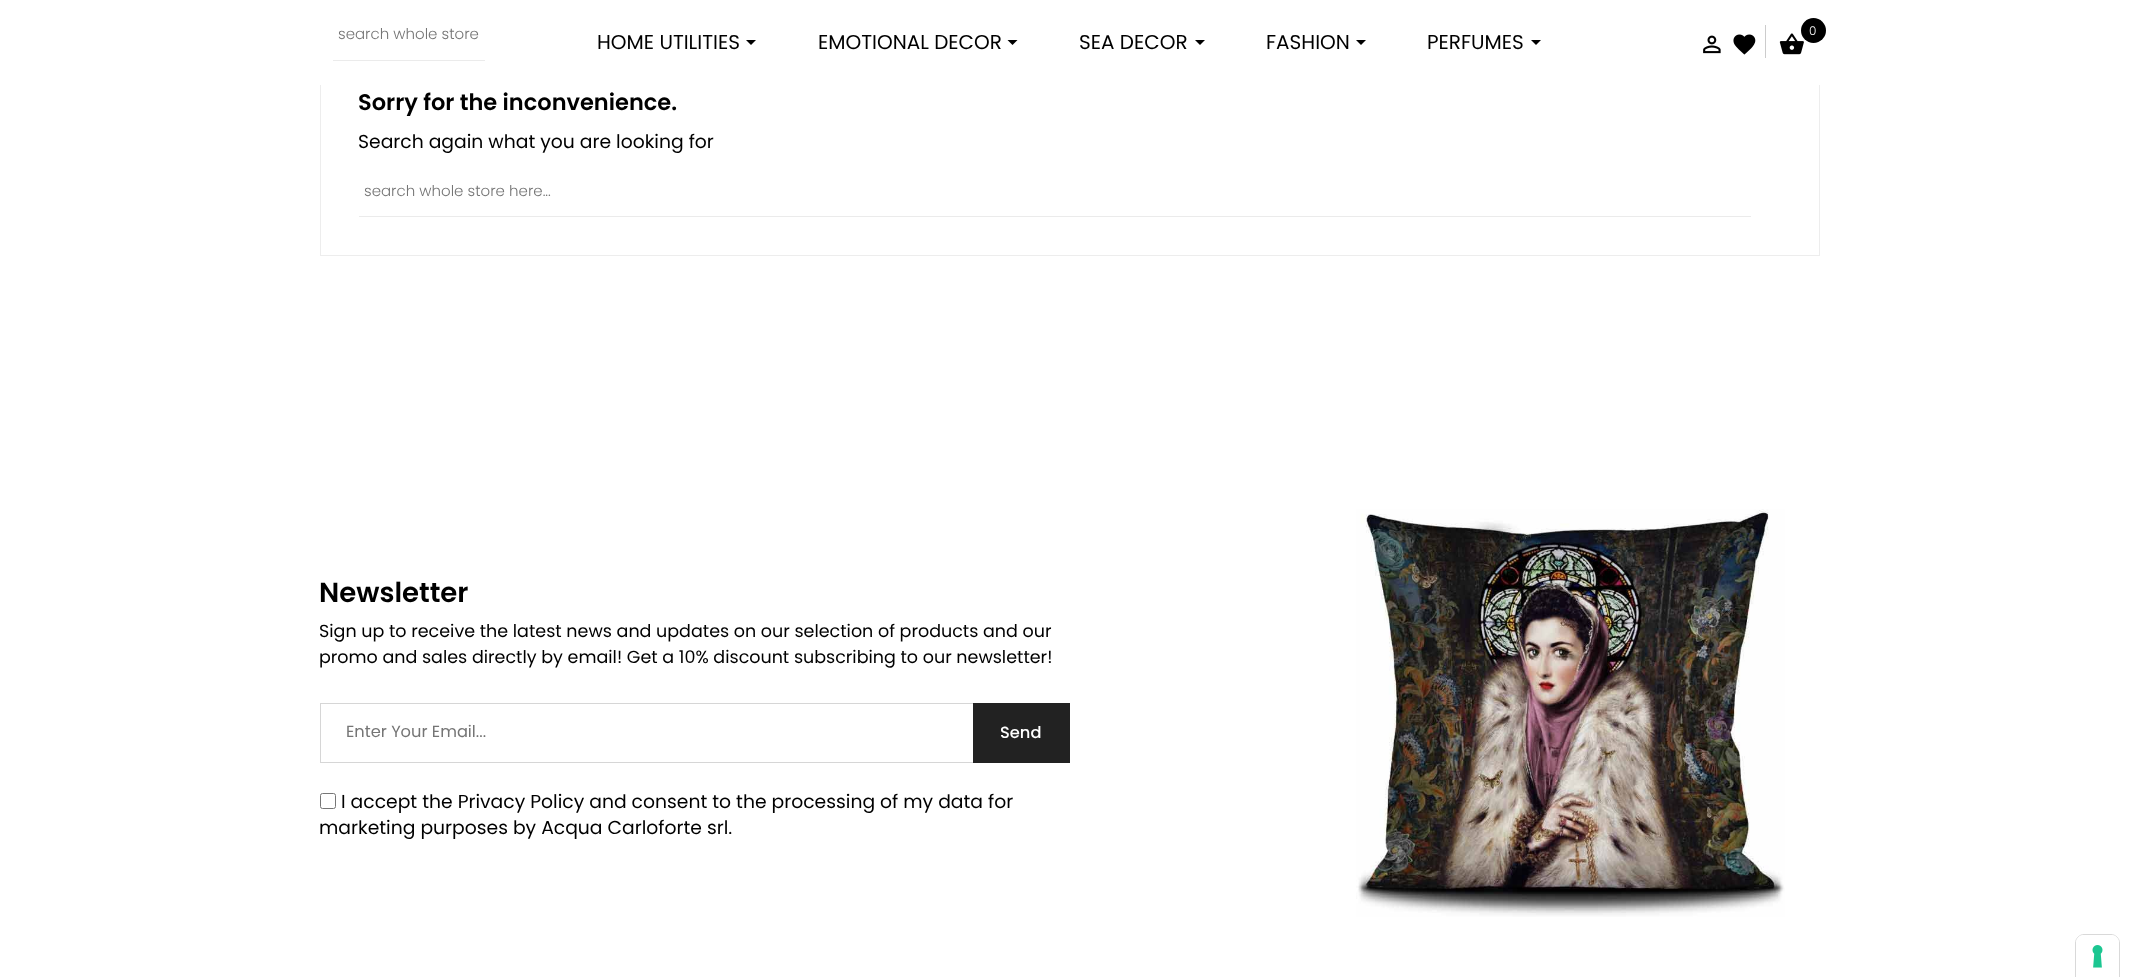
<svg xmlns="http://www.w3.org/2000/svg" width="2138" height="977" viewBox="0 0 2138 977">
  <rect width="100%" height="100%" fill="#ffffff"/>
  <rect x="320.5" y="51.5" width="1499" height="204" fill="none" stroke="#ededed"/>
  <rect x="320" y="51" width="1500" height="34" fill="#ffffff"/>
  <rect x="333" y="60" width="152" height="1" fill="#ebebeb"/>
  <text x="338" y="39" font-family="Poppins" font-size="15" font-weight="300" fill="#757575">search whole store</text>
  <rect x="1765" y="25" width="1" height="33" fill="#cccccc"/>
  <image x="1733" y="34" width="23" height="21" href="img1.png"/>
  <image x="1779" y="33" width="25" height="22" href="img2.png"/>
  <circle cx="1813.5" cy="30.5" r="12.5" fill="#000000"/>
  <text x="1809" y="35" font-family="Poppins" font-size="12" font-weight="300" fill="#ffffff">0</text>
  <image x="1703" y="35" width="18" height="19" href="img3.png"/>
  <text x="597" y="49" font-family="Poppins" font-size="20" fill="#000000">HOME UTILITIES</text>
  <path d="M746 40H756L751 45Z" fill="#000000"/>
  <text x="818" y="49" font-family="Poppins" font-size="20" fill="#000000">EMOTIONAL DECOR</text>
  <path d="M1007.5 40H1017.5L1012.5 45Z" fill="#000000"/>
  <text x="1079" y="49" font-family="Poppins" font-size="20" fill="#000000">SEA DECOR</text>
  <path d="M1195 40H1205L1200 45Z" fill="#000000"/>
  <text x="1266" y="49" font-family="Poppins" font-size="20" fill="#000000">FASHION</text>
  <path d="M1356 40H1366L1361 45Z" fill="#000000"/>
  <text x="1427" y="49" font-family="Poppins" font-size="20" fill="#000000">PERFUMES</text>
  <path d="M1531 40H1541L1536 45Z" fill="#000000"/>
  <text x="358" y="110" font-family="Poppins" font-size="22.5" font-weight="600" fill="#000000">Sorry for the inconvenience.</text>
  <text x="358" y="148" font-family="Poppins" font-size="18.75" fill="#000000">Search again what you are looking for</text>
  <rect x="359" y="216" width="1392" height="1" fill="#ebebeb"/>
  <text x="364" y="196" font-family="Poppins" font-size="15" font-weight="300" fill="#757575">search whole store here...</text>
  <text x="319" y="602" font-family="Poppins" font-size="27.5" font-weight="600" fill="#000000">Newsletter</text>
  <text x="319" y="637" font-family="Poppins" font-size="17.5" fill="#000000">Sign up to receive the latest news and updates on our selection of products and our</text>
  <text x="319" y="663" font-family="Poppins" font-size="17.5" fill="#000000">promo and sales directly by email! Get a 10% discount subscribing to our newsletter!</text>
  <rect x="320.5" y="703.5" width="749" height="59" fill="none" stroke="#d6d6d6"/>
  <text x="346" y="737" font-family="Poppins" font-size="16.25" fill="#757575">Enter Your Email...</text>
  <rect x="973" y="703" width="97" height="60" fill="#222222"/>
  <text x="1000" y="738" font-family="Poppins" font-size="16.25" font-weight="500" fill="#ffffff">Send</text>
  <rect x="320.5" y="793.5" width="15" height="15" rx="2" fill="none" stroke="#767676"/>
  <text x="341" y="808" font-family="Poppins" font-size="18.75" fill="#000000">I accept the Privacy Policy and consent to the processing of my data for</text>
  <text x="319" y="834" font-family="Poppins" font-size="18.75" fill="#000000">marketing purposes by Acqua Carloforte srl.</text>
  <image x="1356" y="509" width="429" height="408" href="img4.png"/>
  <path d="M2084 934.5H2111C2115.5 934.5 2119.5 938.5 2119.5 943V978.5H2075.5V943C2075.5 938.5 2079.5 934.5 2084 934.5Z" fill="none" stroke="#d9d9d9"/>
  <path d="M2084 935H2111C2115.5 935 2119 938.5 2119 943V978H2076V943C2076 938.5 2079.5 935 2084 935Z" fill="#ffffff"/>
  <image x="2092" y="945" width="11" height="23" href="img5.png"/>
</svg>
